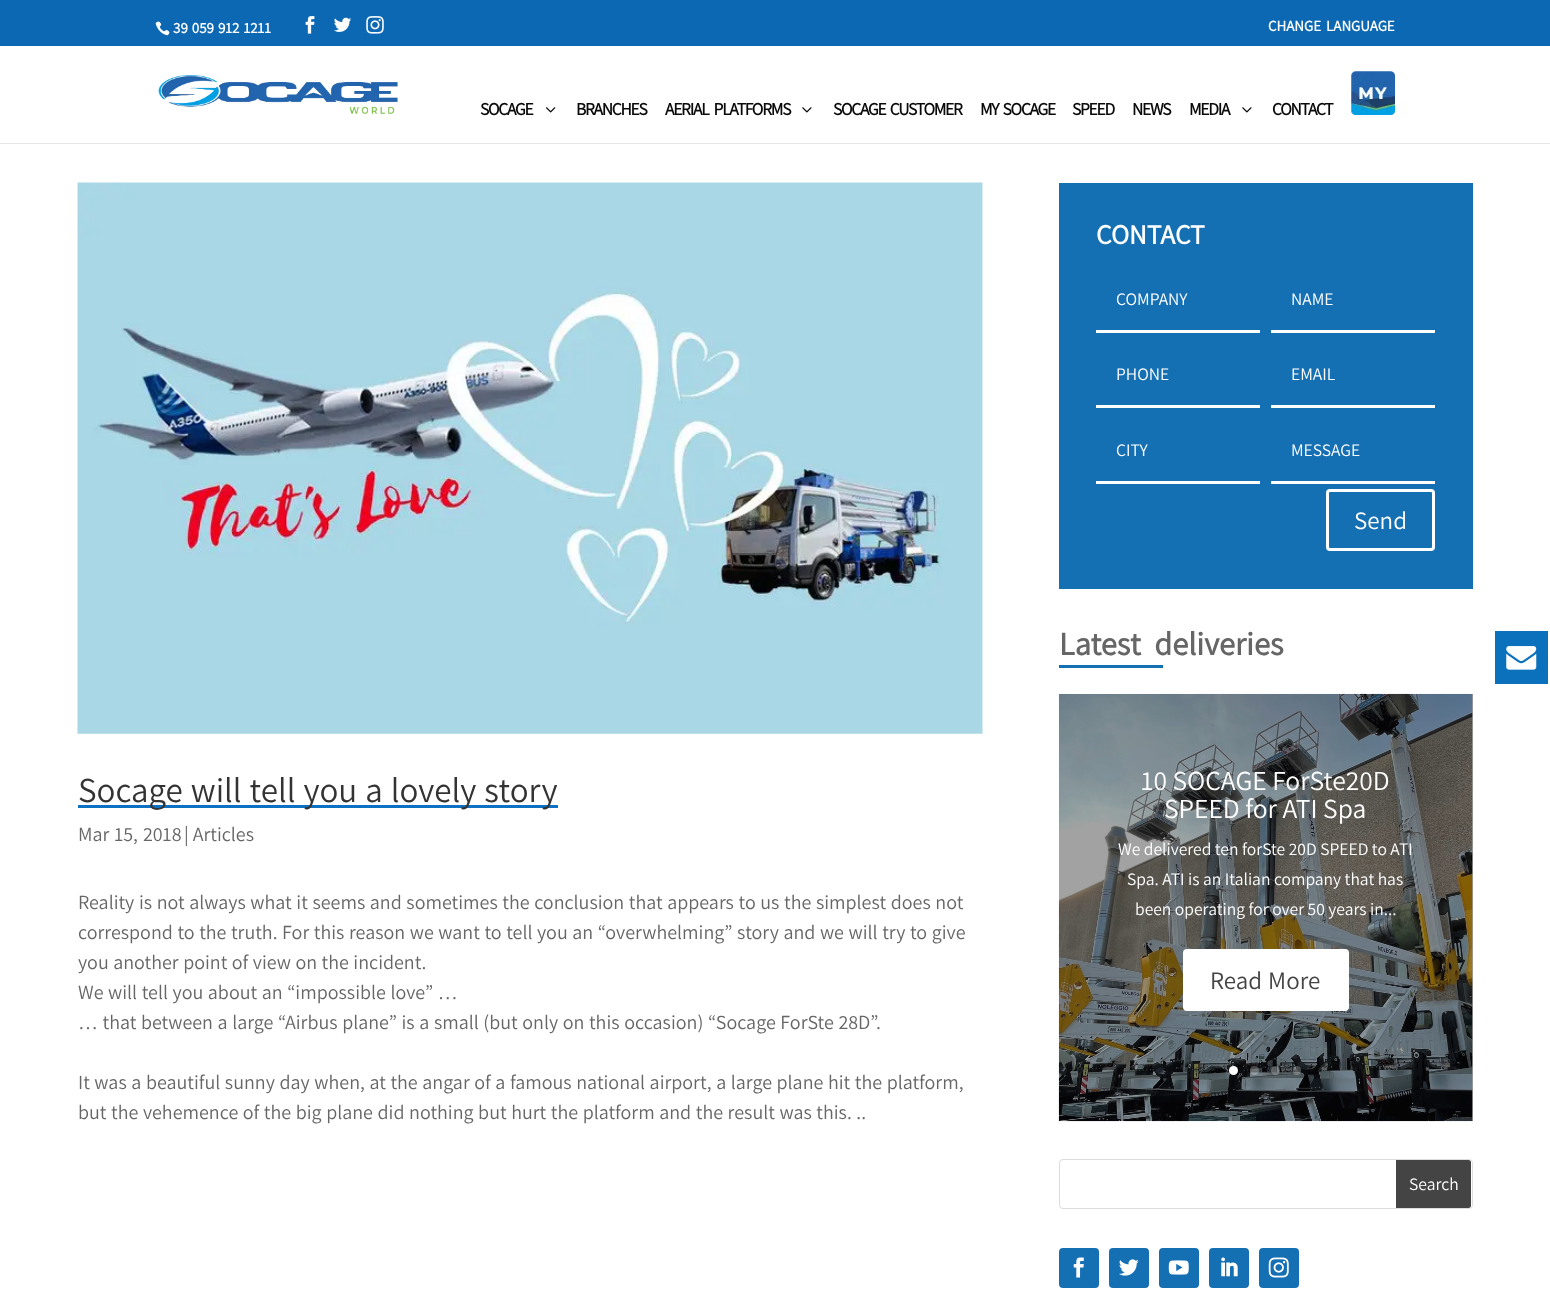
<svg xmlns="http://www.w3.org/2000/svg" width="1550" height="1314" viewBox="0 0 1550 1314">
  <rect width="100%" height="100%" fill="#ffffff"/>
  <rect x="1472" y="694" width="1" height="427" fill="#a2a2a2"/>
  <rect x="0" y="0" width="1550" height="46" fill="#0d68b3"/>
  <image x="155" y="21" width="15" height="15" href="img1.png"/>
  <text x="173" y="33" word-spacing="1" font-family="Assistant" font-size="15" font-weight="bold" fill="#ffffff">39 059 912 1211</text>
  <image x="305" y="16" width="10" height="18" href="img2.png"/>
  <image x="334" y="17" width="18" height="15" href="img3.png"/>
  <image x="366" y="16" width="18" height="18" href="img4.png"/>
  <text x="1268" y="31" word-spacing="2" font-family="Assistant" font-size="15" font-weight="bold" fill="#ffffff">CHANGE LANGUAGE</text>
  <rect x="0" y="143" width="1550" height="1" fill="#e6e6e6"/>
  <image x="158" y="75" width="240" height="39" href="img5.png"/>
  <text x="480" y="115" font-family="Assistant" font-size="17.5" font-weight="bold" letter-spacing="-1.25" fill="#0a0a0a">SOCAGE</text>
  <image x="546" y="107" width="10" height="6" href="img6.png"/>
  <text x="576" y="115" font-family="Assistant" font-size="17.5" font-weight="bold" letter-spacing="-1.25" fill="#0a0a0a">BRANCHES</text>
  <text x="665" y="115" word-spacing="3" font-family="Assistant" font-size="17.5" font-weight="bold" letter-spacing="-1.25" fill="#0a0a0a">AERIAL PLATFORMS</text>
  <image x="802" y="107" width="10" height="6" href="img7.png"/>
  <text x="833" y="115" word-spacing="2" font-family="Assistant" font-size="17.5" font-weight="bold" letter-spacing="-1.25" fill="#0a0a0a">SOCAGE CUSTOMER</text>
  <text x="980" y="115" word-spacing="2" font-family="Assistant" font-size="17.5" font-weight="bold" letter-spacing="-1.25" fill="#0a0a0a">MY SOCAGE</text>
  <text x="1072" y="115" font-family="Assistant" font-size="17.5" font-weight="bold" letter-spacing="-1.25" fill="#0a0a0a">SPEED</text>
  <text x="1132" y="115" font-family="Assistant" font-size="17.5" font-weight="bold" letter-spacing="-1.25" fill="#0a0a0a">NEWS</text>
  <text x="1189" y="115" font-family="Assistant" font-size="17.5" font-weight="bold" letter-spacing="-1.25" fill="#0a0a0a">MEDIA</text>
  <image x="1242" y="107" width="10" height="6" href="img7.png"/>
  <text x="1272" y="115" font-family="Assistant" font-size="17.5" font-weight="bold" letter-spacing="-1.25" fill="#0a0a0a">CONTACT</text>
  <image x="1351" y="71" width="44" height="44" href="img8.png"/>
  <image x="77" y="182" width="906" height="552" href="img9.png"/>
  <rect x="78" y="805" width="480" height="3" fill="#0c71c3"/>
  <text x="78" y="802" word-spacing="1" font-family="Assistant" font-size="35" fill="#333333">Socage will tell you a lovely story</text>
  <text x="78" y="841" word-spacing="1" font-family="Assistant" font-size="20" fill="#666666">Mar 15, 2018</text>
  <text x="184" y="841" font-family="Assistant" font-size="20" fill="#666666">| Articles</text>
  <text x="78" y="909" word-spacing="0.6" font-family="Assistant" font-size="20" fill="#666666">Reality is not always what it seems and sometimes the conclusion that appears to us the simplest does not</text>
  <text x="78" y="939" word-spacing="0.6" font-family="Assistant" font-size="20" fill="#666666">correspond to the truth. For this reason we want to tell you an “overwhelming” story and we will try to give</text>
  <text x="78" y="969" word-spacing="0.5" font-family="Assistant" font-size="20" fill="#666666">you another point of view on the incident.</text>
  <text x="78" y="999" word-spacing="0.6" font-family="Assistant" font-size="20" fill="#666666">We will tell you about an “impossible love” …</text>
  <text x="78" y="1029" word-spacing="0.6" font-family="Assistant" font-size="20" fill="#666666">… that between a large “Airbus plane” is a small (but only on this occasion) “Socage ForSte 28D”.</text>
  <text x="78" y="1089" word-spacing="0.6" font-family="Assistant" font-size="20" fill="#666666">It was a beautiful sunny day when, at the angar of a famous national airport, a large plane hit the platform,</text>
  <text x="78" y="1119" word-spacing="0.6" font-family="Assistant" font-size="20" fill="#666666">but the vehemence of the big plane did nothing but hurt the platform and the result was this. ..</text>
  <rect x="1059" y="183" width="414" height="406" fill="#146fb3"/>
  <text x="1096" y="244" font-family="Assistant" font-size="27.5" font-weight="bold" fill="#ffffff">CONTACT</text>
  <rect x="1096" y="330" width="164" height="3" fill="#ffffff"/>
  <text x="1116" y="305" font-family="Assistant" font-size="17.5" fill="#ffffff">COMPANY</text>
  <rect x="1271" y="330" width="164" height="3" fill="#ffffff"/>
  <text x="1291" y="305" font-family="Assistant" font-size="17.5" fill="#ffffff">NAME</text>
  <rect x="1096" y="405" width="164" height="3" fill="#ffffff"/>
  <text x="1116" y="380" font-family="Assistant" font-size="17.5" fill="#ffffff">PHONE</text>
  <rect x="1271" y="405" width="164" height="3" fill="#ffffff"/>
  <text x="1291" y="380" font-family="Assistant" font-size="17.5" fill="#ffffff">EMAIL</text>
  <rect x="1096" y="481" width="164" height="3" fill="#ffffff"/>
  <text x="1116" y="456" font-family="Assistant" font-size="17.5" fill="#ffffff">CITY</text>
  <rect x="1271" y="481" width="164" height="3" fill="#ffffff"/>
  <text x="1291" y="456" font-family="Assistant" font-size="17.5" fill="#ffffff">MESSAGE</text>
  <rect x="1327.5" y="490.5" width="106" height="59" rx="2.5" fill="none" stroke="#ffffff" stroke-width="3"/>
  <text x="1354" y="529" font-family="Assistant" font-size="25" fill="#ffffff">Send</text>
  <text x="1059" y="655" word-spacing="7" font-family="Assistant" font-size="32.5" font-weight="bold" fill="#666666">Latest deliveries</text>
  <rect x="1059" y="665" width="104" height="3" fill="#146fb3"/>
  <image x="1058" y="693" width="415" height="429" href="img10.png"/>
  <text x="1141" y="790" font-family="Assistant" font-size="27.5" fill="#ffffff">10 SOCAGE ForSte20D</text>
  <text x="1164" y="818" font-family="Assistant" font-size="27.5" fill="#ffffff">SPEED for ATI Spa</text>
  <text x="1118" y="855" font-family="Assistant" font-size="17.5" fill="#ffffff">We delivered ten forSte 20D SPEED to ATI</text>
  <text x="1127" y="885" font-family="Assistant" font-size="17.5" fill="#ffffff">Spa. ATI is an Italian company that has</text>
  <text x="1135" y="915" font-family="Assistant" font-size="17.5" fill="#ffffff">been operating for over 50 years in...</text>
  <rect x="1184.5" y="950.5" width="163" height="59" rx="2.5" fill="#ffffff" stroke="#ffffff" stroke-width="3"/>
  <text x="1210" y="989" word-spacing="1" font-family="Assistant" font-size="25" fill="#444444">Read More</text>
  <circle cx="1233.5" cy="1070.5" r="4.5" fill="#ffffff"/>
  <circle cx="1254.5" cy="1070.5" r="4.5" fill="#ffffff" fill-opacity="0.25"/>
  <circle cx="1275.5" cy="1070.5" r="4.5" fill="#ffffff" fill-opacity="0.25"/>
  <rect x="1293" y="1066" width="8" height="9" rx="4" fill="#ffffff" fill-opacity="0.25"/>
  <rect x="1059.5" y="1159.5" width="413" height="49" rx="3.5" fill="none" stroke="#dddddd"/>
  <path d="M1396 1160H1468.5C1470 1160 1471 1161 1471 1162.5V1205.5C1471 1207 1470 1208 1468.5 1208H1396Z" fill="#444444"/>
  <text x="1409" y="1190" font-family="Assistant" font-size="17.5" fill="#ffffff">Search</text>
  <rect x="1059" y="1248" width="40" height="40" rx="4" fill="#146fb3"/>
  <image x="1073" y="1257" width="11" height="21" href="img11.png"/>
  <rect x="1109" y="1248" width="40" height="40" rx="4" fill="#146fb3"/>
  <image x="1119" y="1259" width="20" height="17" href="img12.png"/>
  <rect x="1159" y="1248" width="40" height="40" rx="4" fill="#146fb3"/>
  <image x="1168" y="1260" width="21" height="15" href="img13.png"/>
  <rect x="1209" y="1248" width="40" height="40" rx="4" fill="#146fb3"/>
  <image x="1221" y="1257" width="17" height="20" href="img14.png"/>
  <rect x="1259" y="1248" width="40" height="40" rx="4" fill="#146fb3"/>
  <image x="1268" y="1257" width="21" height="21" href="img15.png"/>
  <rect x="1495" y="631" width="53" height="53" fill="#0b71bc"/>
  <image x="1506" y="646" width="31" height="24" href="img16.png"/>
</svg>
